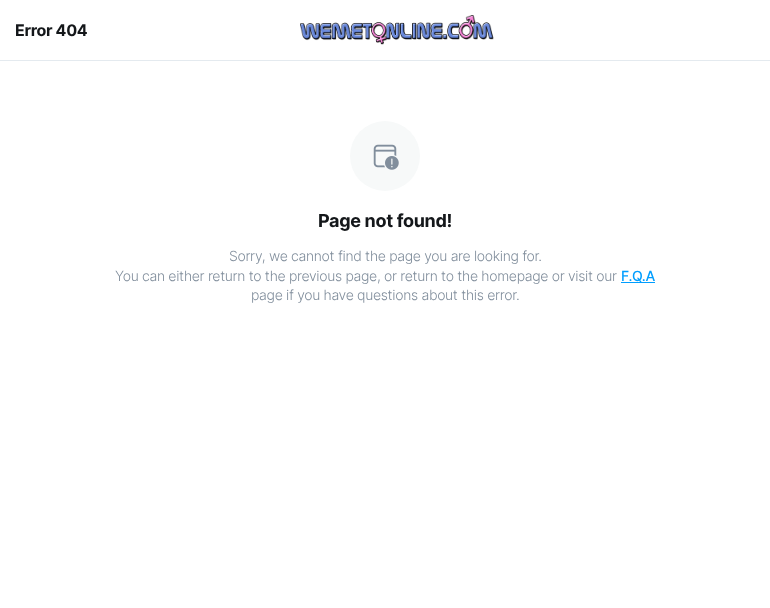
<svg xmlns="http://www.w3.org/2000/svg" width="770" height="608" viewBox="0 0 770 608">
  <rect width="100%" height="100%" fill="#ffffff"/>
  <rect x="0" y="60" width="770" height="1" fill="#e4eaef"/>
  <text x="15" y="36" font-family="Inter" font-size="16" font-weight="bold" letter-spacing="-0.32" fill="#14171a">Error 404</text>
  <image x="300" y="15" width="194" height="30" href="img1.png"/>
  <circle cx="385" cy="156" r="35" fill="#f7f9f9"/>
  <image x="373" y="144" width="26" height="26" href="img2.png"/>
  <text x="318" y="227" font-family="Inter" font-size="18" font-weight="bold" letter-spacing="-0.32" fill="#14171a">Page not found!</text>
  <text x="229" y="261" font-family="Inter" font-size="14" font-weight="300" letter-spacing="-0.32" fill="#818e9c">Sorry, we cannot find the page you are looking for.</text>
  <text x="115" y="281" font-family="Inter" font-size="14" font-weight="300" letter-spacing="-0.32" fill="#818e9c">You can either return to the previous page, or return to the homepage or visit our</text>
  <text x="621" y="281" font-family="Inter" font-size="14" font-weight="500" letter-spacing="-0.32" fill="#009eff">F.Q.A</text>
  <rect x="621" y="282" width="34" height="1" fill="#009eff"/>
  <text x="251" y="300" font-family="Inter" font-size="14" font-weight="300" letter-spacing="-0.32" fill="#818e9c">page if you have questions about this error.</text>
</svg>
